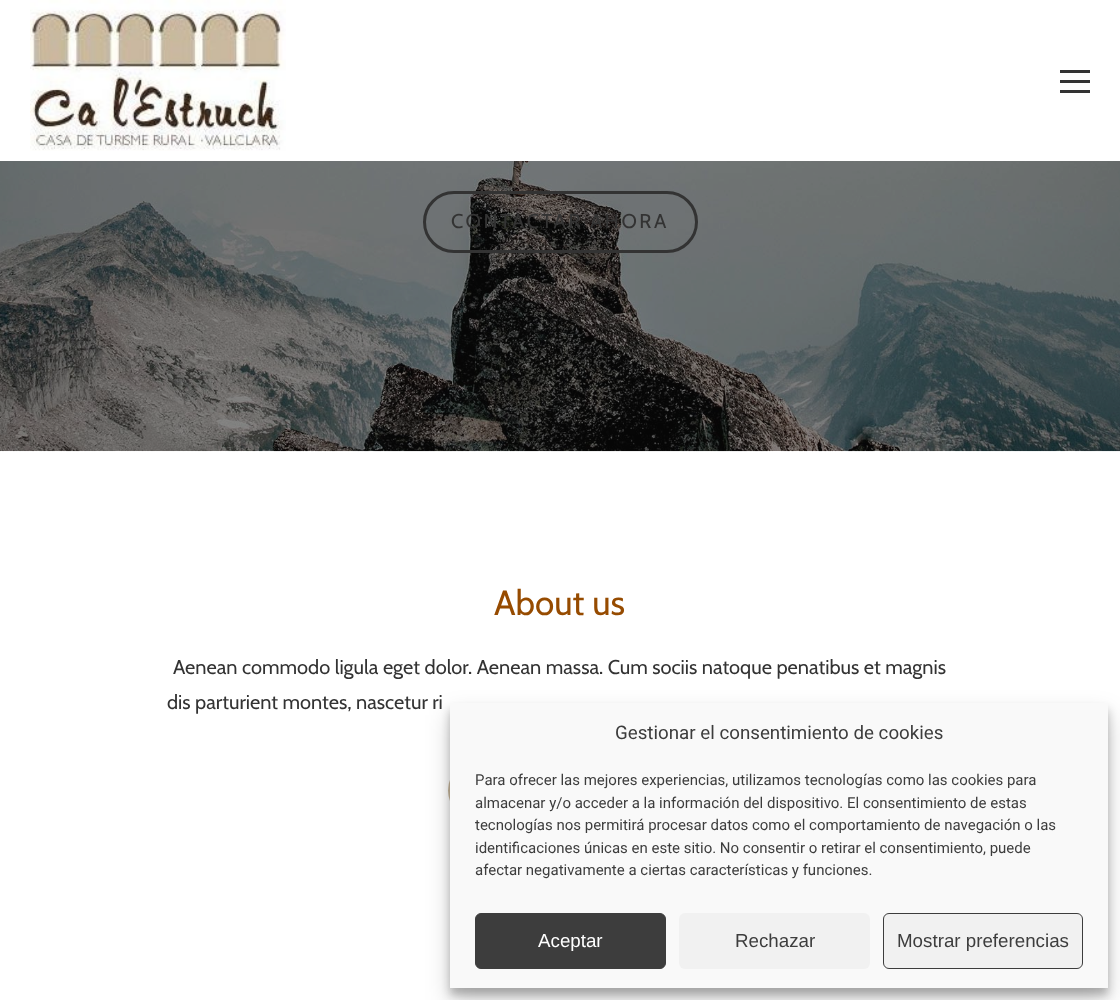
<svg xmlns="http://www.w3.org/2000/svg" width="1120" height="1000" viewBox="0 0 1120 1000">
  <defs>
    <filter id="blur1" x="-50%" y="-200%" width="200%" height="500%"><feGaussianBlur stdDeviation="4"/></filter>
    <filter id="blur2" x="-50%" y="-200%" width="200%" height="500%"><feGaussianBlur stdDeviation="12.5"/></filter>
  </defs>
  <rect width="100%" height="100%" fill="#ffffff"/>
  <image x="30" y="0" width="256" height="151" href="img1.png"/>
  <rect x="1060" y="80" width="30" height="3" fill="#333333"/>
  <rect x="1060" y="70" width="30" height="3" fill="#333333"/>
  <rect x="1060" y="90" width="30" height="3" fill="#333333"/>
  <image x="0" y="161" width="1120" height="291" href="img2.png"/>
  <rect x="424.5" y="192.5" width="272" height="59" rx="29.5" fill="none" stroke="#333333" stroke-width="3"/>
  <text x="451" y="228" font-family="Cabin" font-size="20" letter-spacing="2.5" fill="#333333">CONTACTAR AHORA</text>
  <text x="494" y="615" font-family="Cabin" font-size="35" fill="#964b00">About us</text>
  <text x="173" y="674" font-family="Cabin" font-size="20" fill="#333333">Aenean commodo ligula eget dolor. Aenean massa. Cum sociis natoque penatibus et magnis</text>
  <text x="167" y="709" font-family="Cabin" font-size="20" fill="#333333">dis parturient montes, nascetur ri</text>
  <rect x="448" y="760" width="225" height="61" rx="30.5" fill="#c9b99e"/>
  <rect x="450" y="710" width="658" height="285" fill="#000000" fill-opacity="0.23" filter="url(#blur1)"/>
  <rect x="450" y="715" width="658" height="285" fill="#000000" fill-opacity="0.19" filter="url(#blur2)"/>
  <rect x="450" y="703" width="658" height="285" fill="#f9f9f9"/>
  <text x="615" y="739" font-family="Roboto" font-size="18.75" fill="#3d3d3d">Gestionar el consentimiento de cookies</text>
  <text x="475" y="785" font-family="Roboto" font-size="15" fill="#3d3d3d">Para ofrecer las mejores experiencias, utilizamos tecnologías como las cookies para</text>
  <text x="475" y="808" font-family="Roboto" font-size="15" fill="#3d3d3d">almacenar y/o acceder a la información del dispositivo. El consentimiento de estas</text>
  <text x="475" y="830" font-family="Roboto" font-size="15" fill="#3d3d3d">tecnologías nos permitirá procesar datos como el comportamiento de navegación o las</text>
  <text x="475" y="853" font-family="Roboto" font-size="15" fill="#3d3d3d">identificaciones únicas en este sitio. No consentir o retirar el consentimiento, puede</text>
  <text x="475" y="875" font-family="Roboto" font-size="15" fill="#3d3d3d">afectar negativamente a ciertas características y funciones.</text>
  <rect x="475.5" y="913.5" width="190" height="55" rx="5.5" fill="#3d3d3d" stroke="#3d3d3d"/>
  <text x="538" y="947" font-family="Liberation Sans" font-size="18.75" fill="#ffffff">Aceptar</text>
  <rect x="679" y="913" width="191" height="56" rx="6" fill="#f1f1f1"/>
  <text x="735" y="947" font-family="Liberation Sans" font-size="18.75" fill="#3d3d3d">Rechazar</text>
  <rect x="883.5" y="913.5" width="199" height="55" rx="5.5" fill="#f1f1f1" stroke="#3d3d3d"/>
  <text x="897" y="947" font-family="Liberation Sans" font-size="18.75" fill="#3d3d3d">Mostrar preferencias</text>
</svg>
